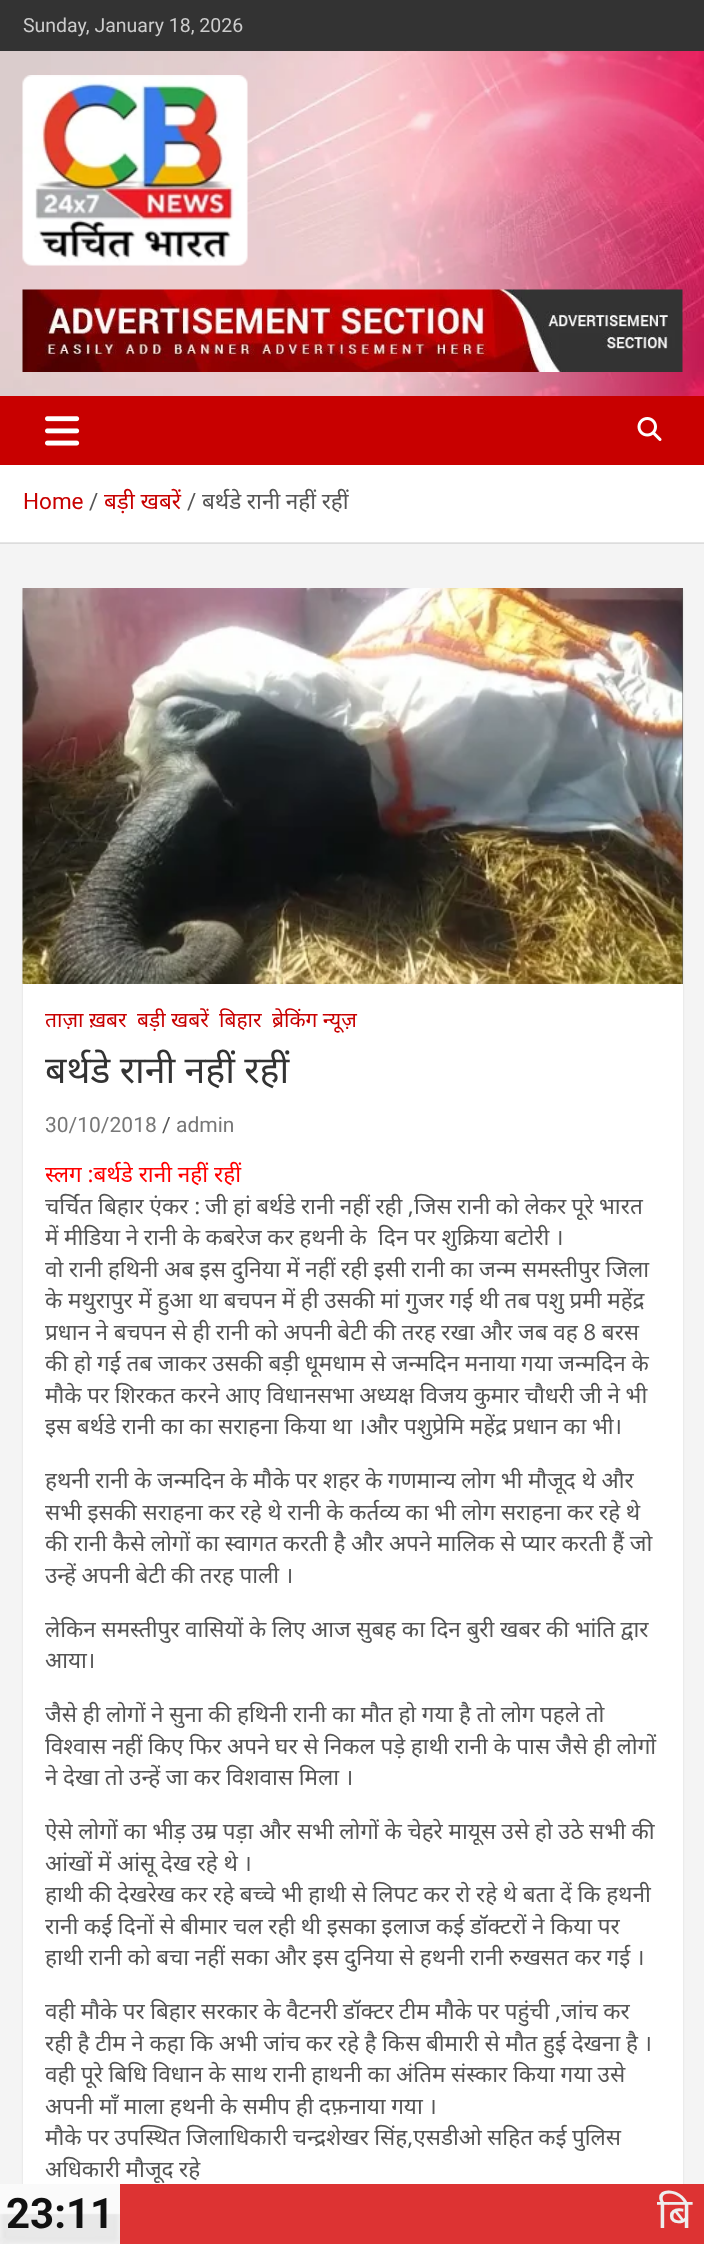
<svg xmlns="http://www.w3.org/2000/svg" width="704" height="2244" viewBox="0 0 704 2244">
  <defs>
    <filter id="blur1" x="-50%" y="-200%" width="200%" height="500%"><feGaussianBlur stdDeviation="1"/></filter>
  </defs>
  <rect width="100%" height="100%" fill="#f4f4f4"/>
  <rect x="0" y="543" width="704" height="1" fill="#dcdcdc"/>
  <rect x="0" y="0" width="704" height="51" fill="#333333"/>
  <text x="23" y="32" font-family="Roboto" font-size="19.5" fill="#cccccc">Sunday, January 18, 2026</text>
  <image x="0" y="51" width="704" height="345" href="img1.png"/>
  <image x="22" y="75" width="226" height="191" href="img2.png"/>
  <image x="22" y="289" width="661" height="83" href="img3.png"/>
  <rect x="0" y="396" width="704" height="69" fill="#c80000"/>
  <image x="45" y="416" width="35" height="30" href="img4.png"/>
  <image x="637" y="417" width="25" height="24" href="img5.png"/>
  <rect x="0" y="465" width="704" height="77" fill="#ffffff"/>
  <rect x="0" y="542" width="704" height="1" fill="#e6e6e6"/>
  <text x="23" y="509" font-family="Roboto" font-size="22.5" fill="#c80000">Home</text>
  <text x="89" y="509" font-family="Roboto" font-size="22.5" fill="#555555">/</text>
  <text x="104" y="509" font-family="Noto Sans" font-size="22.5" fill="#c80000">बड़ी खबरें</text>
  <text x="187" y="509" font-family="Roboto" font-size="22.5" fill="#555555">/</text>
  <text x="202" y="509" word-spacing="-0.25" font-family="Noto Sans" font-size="22.5" fill="#555555">बर्थडे रानी नहीं रहीं</text>
  <rect x="23" y="590" width="660" height="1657" fill="#000000" fill-opacity="0.1" filter="url(#blur1)"/>
  <rect x="23" y="984" width="660" height="1200" fill="#ffffff"/>
  <rect x="682" y="588" width="1" height="396" fill="#555555"/>
  <image x="22" y="588" width="661" height="396" href="img6.png"/>
  <text x="45" y="1027" font-family="Noto Sans" font-size="21" fill="#c80000">ताज़ा ख़बर</text>
  <text x="137" y="1027" font-family="Noto Sans" font-size="21" fill="#c80000">बड़ी खबरें</text>
  <text x="219" y="1027" font-family="Noto Sans" font-size="21" fill="#c80000">बिहार</text>
  <text x="272" y="1027" font-family="Noto Sans" font-size="21" fill="#c80000">ब्रेकिंग न्यूज़</text>
  <text x="45" y="1083" word-spacing="-0.5" font-family="Noto Sans" font-size="37.5" fill="#333333">बर्थडे रानी नहीं रहीं</text>
  <text x="45" y="1132" font-family="Roboto" font-size="21" fill="#777777">30/10/2018</text>
  <text x="162" y="1132" font-family="Roboto" font-size="21" fill="#555555">/</text>
  <text x="176" y="1132" font-family="Roboto" font-size="21" fill="#777777">admin</text>
  <text x="45" y="1182" font-family="Noto Sans" font-size="22.5" fill="#ff0000">स्लग :बर्थडे रानी नहीं रहीं</text>
  <text x="45" y="1214" font-family="Noto Sans" font-size="22.5" fill="#555555">चर्चित बिहार एंकर :</text>
  <text x="205" y="1214" word-spacing="-0.4" font-family="Noto Sans" font-size="22.5" fill="#555555">जी हां बर्थडे रानी नहीं रही ,जिस रानी को लेकर पूरे भारत</text>
  <text x="45" y="1245" word-spacing="-0.25" font-family="Noto Sans" font-size="22.5" fill="#555555" xml:space="preserve">में मीडिया ने रानी के कबरेज कर हथनी के  दिन पर शुक्रिया बटोरी ।</text>
  <text x="45" y="1277" word-spacing="-0.25" font-family="Noto Sans" font-size="22.5" fill="#555555">वो रानी हथिनी अब इस दुनिया में नहीं रही इसी रानी का जन्म समस्तीपुर जिला</text>
  <text x="45" y="1308" word-spacing="-0.25" font-family="Noto Sans" font-size="22.5" fill="#555555">के मथुरापुर में हुआ था बचपन में ही उसकी मां गुजर गई थी तब पशु प्रमी महेंद्र</text>
  <text x="45" y="1340" word-spacing="-0.25" font-family="Noto Sans" font-size="22.5" fill="#555555">प्रधान ने बचपन से ही रानी को अपनी बेटी की तरह रखा और जब वह 8 बरस</text>
  <text x="45" y="1371" word-spacing="-0.25" font-family="Noto Sans" font-size="22.5" fill="#555555">की हो गई तब जाकर उसकी बड़ी धूमधाम से जन्मदिन मनाया गया जन्मदिन के</text>
  <text x="45" y="1403" word-spacing="-0.25" font-family="Noto Sans" font-size="22.5" fill="#555555">मौके पर शिरकत करने आए विधानसभा अध्यक्ष विजय कुमार चौधरी जी ने भी</text>
  <text x="45" y="1434" word-spacing="-0.25" font-family="Noto Sans" font-size="22.5" fill="#555555">इस बर्थडे रानी का का सराहना किया था ।और पशुप्रेमि महेंद्र प्रधान का भी।</text>
  <text x="45" y="1488" word-spacing="-0.25" font-family="Noto Sans" font-size="22.5" fill="#555555">हथनी रानी के जन्मदिन के मौके पर शहर के गणमान्य लोग भी मौजूद थे और</text>
  <text x="45" y="1520" word-spacing="-0.25" font-family="Noto Sans" font-size="22.5" fill="#555555">सभी इसकी सराहना कर रहे थे रानी के कर्तव्य का भी लोग सराहना कर रहे थे</text>
  <text x="45" y="1551" word-spacing="-0.25" font-family="Noto Sans" font-size="22.5" fill="#555555">की रानी कैसे लोगों का स्वागत करती है और अपने मालिक से प्यार करती हैं जो</text>
  <text x="45" y="1583" word-spacing="-0.25" font-family="Noto Sans" font-size="22.5" fill="#555555">उन्हें अपनी बेटी की तरह पाली ।</text>
  <text x="45" y="1637" word-spacing="-0.25" font-family="Noto Sans" font-size="22.5" fill="#555555">लेकिन समस्तीपुर वासियों के लिए आज सुबह का दिन बुरी खबर की भांति द्वार</text>
  <text x="45" y="1668" font-family="Noto Sans" font-size="22.5" fill="#555555">आया।</text>
  <text x="45" y="1722" word-spacing="-0.25" font-family="Noto Sans" font-size="22.5" fill="#555555">जैसे ही लोगों ने सुना की हथिनी रानी का मौत हो गया है तो लोग पहले तो</text>
  <text x="45" y="1754" word-spacing="-0.25" font-family="Noto Sans" font-size="22.5" fill="#555555">विश्वास नहीं किए फिर अपने घर से निकल पड़े हाथी रानी के पास जैसे ही लोगों</text>
  <text x="45" y="1785" word-spacing="-0.25" font-family="Noto Sans" font-size="22.5" fill="#555555">ने देखा तो उन्हें जा कर विशवास मिला ।</text>
  <text x="45" y="1839" word-spacing="-0.25" font-family="Noto Sans" font-size="22.5" fill="#555555">ऐसे लोगों का भीड़ उम्र पड़ा और सभी लोगों के चेहरे मायूस उसे हो उठे सभी की</text>
  <text x="45" y="1871" word-spacing="-0.25" font-family="Noto Sans" font-size="22.5" fill="#555555">आंखों में आंसू देख रहे थे ।</text>
  <text x="45" y="1902" word-spacing="-0.25" font-family="Noto Sans" font-size="22.5" fill="#555555">हाथी की देखरेख कर रहे बच्चे भी हाथी से लिपट कर रो रहे थे बता दें कि हथनी</text>
  <text x="45" y="1934" word-spacing="-0.25" font-family="Noto Sans" font-size="22.5" fill="#555555">रानी कई दिनों से बीमार चल रही थी इसका इलाज कई डॉक्टरों ने किया पर</text>
  <text x="45" y="1965" word-spacing="-0.25" font-family="Noto Sans" font-size="22.5" fill="#555555">हाथी रानी को बचा नहीं सका और इस दुनिया से हथनी रानी रुखसत कर गई ।</text>
  <text x="45" y="2019" word-spacing="-0.4" font-family="Noto Sans" font-size="22.5" fill="#555555">वही मौके पर बिहार सरकार के वैटनरी डॉक्टर टीम मौके पर पहुंची ,जांच कर</text>
  <text x="45" y="2051" word-spacing="-0.25" font-family="Noto Sans" font-size="22.5" fill="#555555">रही है टीम ने कहा कि अभी जांच कर रहे है किस बीमारी से मौत हुई देखना है ।</text>
  <text x="45" y="2082" word-spacing="-0.25" font-family="Noto Sans" font-size="22.5" fill="#555555">वही पूरे बिधि विधान के साथ रानी हाथनी का अंतिम संस्कार किया गया उसे</text>
  <text x="45" y="2114" word-spacing="-0.25" font-family="Noto Sans" font-size="22.5" fill="#555555">अपनी माँ माला हथनी के समीप ही दफ़नाया गया ।</text>
  <text x="45" y="2145" word-spacing="-0.5" font-family="Noto Sans" font-size="22.5" fill="#555555">मौके पर उपस्थित जिलाधिकारी चन्द्रशेखर सिंह,एसडीओ सहित कई पुलिस</text>
  <text x="45" y="2177" word-spacing="-0.25" font-family="Noto Sans" font-size="22.5" fill="#555555">अधिकारी मौजूद रहे</text>
  <image x="0" y="2184" width="120" height="60" href="img7.png"/>
  <text x="6" y="2228" font-family="Roboto" font-size="42" font-weight="bold" fill="#111111">23:11</text>
  <rect x="120" y="2184" width="584" height="60" fill="#dd3333"/>
  <text x="657" y="2228" font-family="Noto Sans" font-size="42" fill="#eeeeee">बि</text>
</svg>
